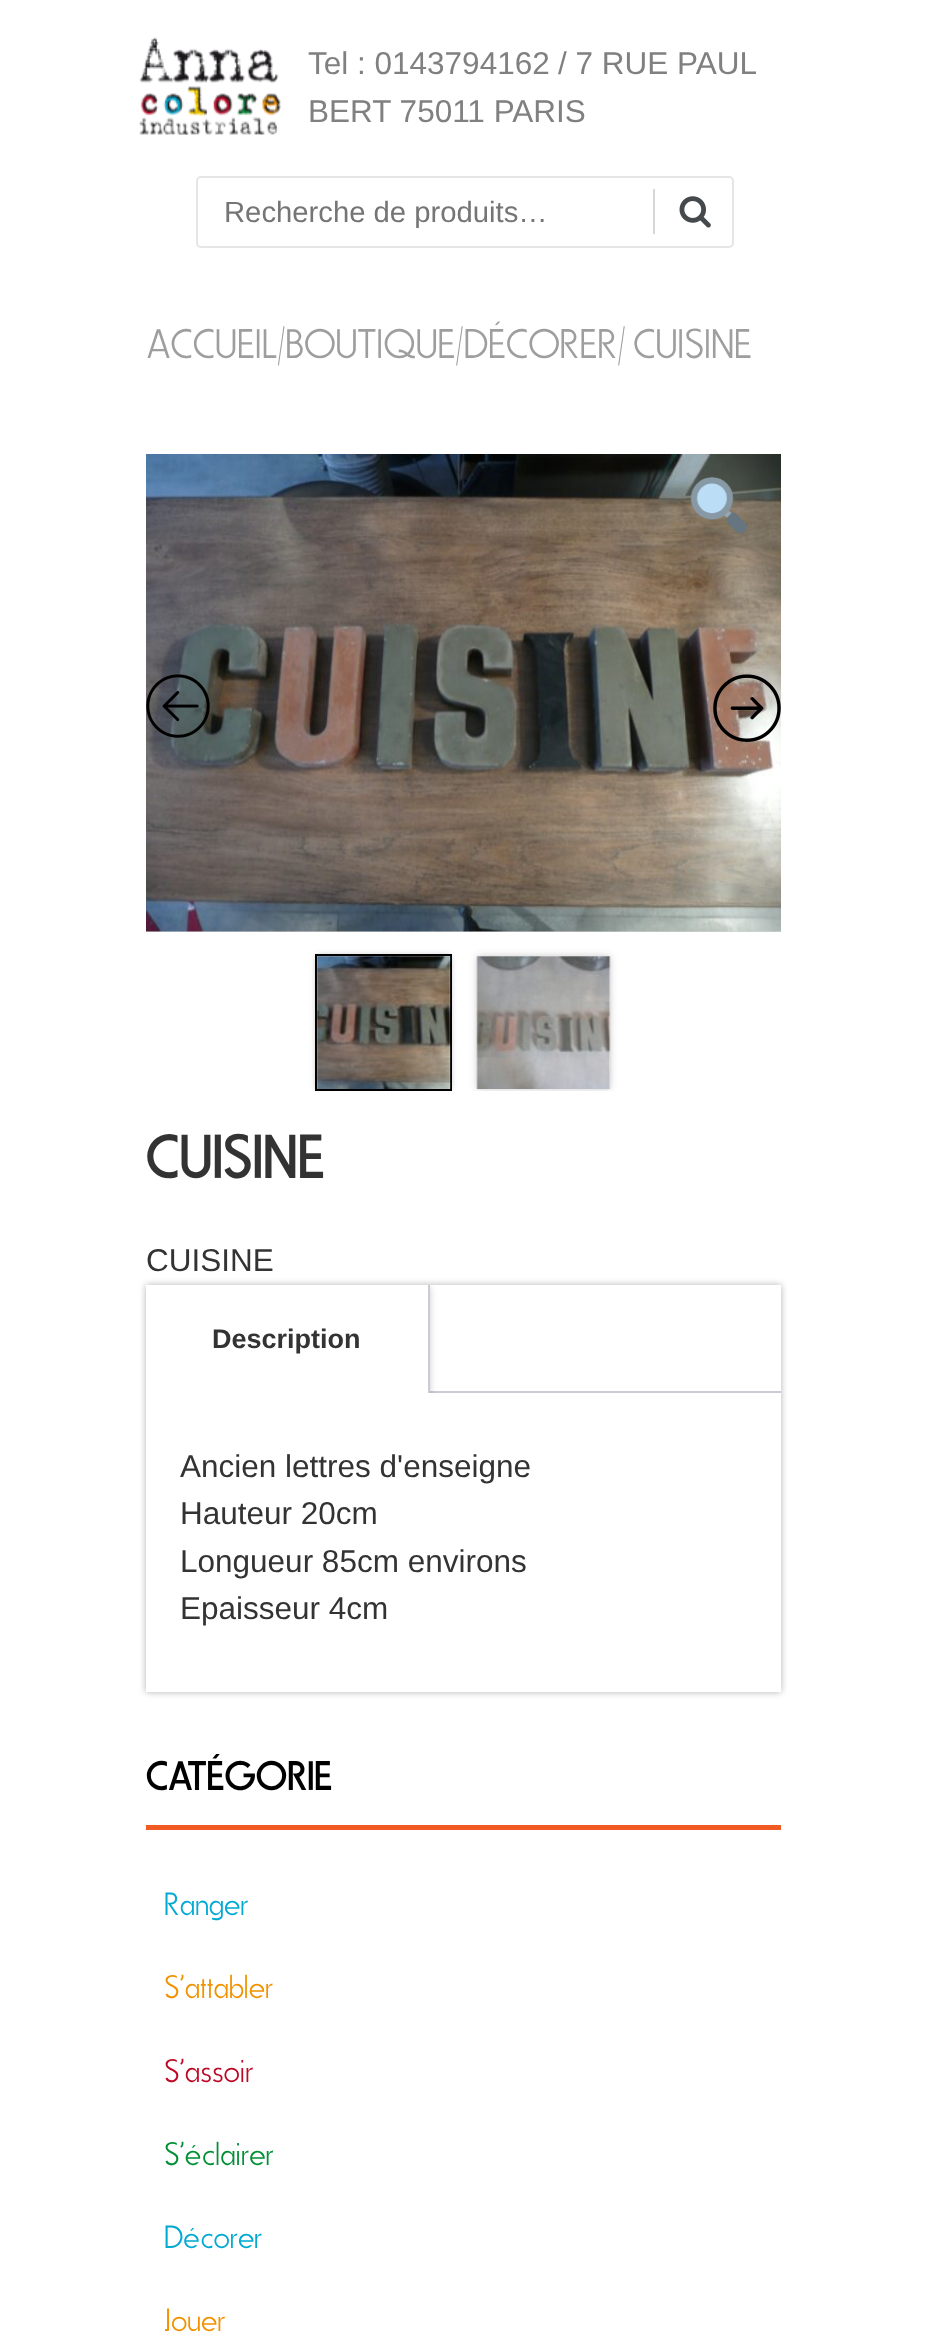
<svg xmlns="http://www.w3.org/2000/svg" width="927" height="2341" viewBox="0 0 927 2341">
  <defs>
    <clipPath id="clip1"><rect x="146" y="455" width="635" height="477"/></clipPath>
    <filter id="blur1" x="-50%" y="-200%" width="200%" height="500%"><feGaussianBlur stdDeviation="3.5"/></filter>
    <clipPath id="clip2"><rect x="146" y="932" width="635" height="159"/></clipPath>
    <clipPath id="clip3"><path d="M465 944H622V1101H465ZM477 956H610V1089H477Z" clip-rule="evenodd"/></clipPath>
    <clipPath id="clip4"><path d="M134 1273H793V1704H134ZM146 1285H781V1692H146Z" clip-rule="evenodd"/></clipPath>
    <clipPath id="clip5"><rect x="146" y="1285" width="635" height="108"/></clipPath>
  </defs>
  <rect width="100%" height="100%" fill="#ffffff"/>
  <image x="139" y="37" width="142" height="98" href="img1.png"/>
  <text x="308" y="74" font-family="Liberation Sans" font-size="31.5" fill="#808080">Tel : 0143794162</text>
  <text x="558" y="74" font-family="Liberation Sans" font-size="31.5" fill="#808080">/ 7 RUE PAUL</text>
  <text x="308" y="122" font-family="Liberation Sans" font-size="31.5" fill="#808080">BERT 75011 PARIS</text>
  <rect x="197" y="177" width="536" height="70" rx="4" fill="none" stroke="#e5e5e5" stroke-width="2"/>
  <rect x="729" y="178" width="2" height="1" fill="#ffffff"/>
  <text x="224" y="222" font-family="Liberation Sans" font-size="29.25" fill="#757575">Recherche de produits…</text>
  <rect x="653" y="189" width="2" height="45" fill="#d7d7d7"/>
  <image x="679" y="196" width="32" height="32" href="img2.png"/>
  <text x="146" y="358" font-family="'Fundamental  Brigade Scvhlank'" font-size="40.5" font-weight="100" fill="#9e9e9e">ACCUEIL/BOUTIQUE/DÉCORER/</text>
  <text x="633" y="358" font-family="'Fundamental  Brigade Scvhlank'" font-size="40.5" font-weight="100" fill="#9e9e9e">CUISINE</text>
  <g clip-path="url(#clip1)">
    <rect x="146" y="455" width="635" height="477" fill="#000000" fill-opacity="0.3" filter="url(#blur1)"/>
  </g>
  <image x="146" y="454" width="635" height="478" href="img3.png"/>
  <image x="690" y="477" width="57" height="56" href="img4.png"/>
  <image x="146" y="674" width="64" height="64" href="img5.png"/>
  <image x="713" y="674" width="68" height="68" href="img6.png"/>
  <rect x="316" y="955" width="135" height="135" fill="none" stroke="#000000" stroke-width="2"/>
  <g clip-path="url(#clip2)">
    <rect x="317" y="956" width="133" height="133" fill="#000000" fill-opacity="0.3" filter="url(#blur1)"/>
  </g>
  <image x="317" y="956" width="134" height="133" href="img7.png"/>
  <g clip-path="url(#clip2)">
    <g clip-path="url(#clip3)">
      <rect x="477" y="956" width="133" height="133" fill="#4d4d4d" fill-opacity="0.3" filter="url(#blur1)"/>
    </g>
  </g>
  <image x="476" y="956" width="135" height="133" href="img8.png"/>
  <text x="146" y="1178" font-family="'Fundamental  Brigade'" font-size="61" fill="#333333">CUISINE</text>
  <text x="146" y="1271" font-family="Liberation Sans" font-size="31.5" fill="#333333">CUISINE</text>
  <g clip-path="url(#clip4)">
    <rect x="146" y="1285" width="635" height="407" fill="#000000" fill-opacity="0.3" filter="url(#blur1)"/>
  </g>
  <rect x="430" y="1391" width="351" height="2" fill="#cfc8d8"/>
  <g clip-path="url(#clip5)">
    <rect x="142" y="1287" width="288" height="117" fill="#000000" fill-opacity="0.2" filter="url(#blur1)"/>
  </g>
  <rect x="146" y="1285" width="282" height="108" fill="#ffffff"/>
  <rect x="428" y="1285" width="2" height="108" fill="#cfc8d8"/>
  <text x="212" y="1348" font-family="Liberation Sans" font-size="27" font-weight="bold" fill="#333333">Description</text>
  <text x="180" y="1477" font-family="Liberation Sans" font-size="31.5" fill="#333333">Ancien lettres d'enseigne</text>
  <text x="180" y="1524" font-family="Liberation Sans" font-size="31.5" fill="#333333">Hauteur 20cm</text>
  <text x="180" y="1572" font-family="Liberation Sans" font-size="31.5" fill="#333333">Longueur 85cm environs</text>
  <text x="180" y="1619" font-family="Liberation Sans" font-size="31.5" fill="#333333">Epaisseur 4cm</text>
  <rect x="146" y="1825" width="635" height="5" fill="#f15a23"/>
  <text x="146" y="1790" font-family="'Fundamental  Brigade'" font-size="40.5" fill="#000000">CATÉGORIE</text>
  <text x="164" y="1915" font-family="'Fundamental  Brigade Scvhlank'" font-size="31.5" font-weight="100" fill="#00a9d2">Ranger</text>
  <text x="164" y="1998" font-family="'Fundamental  Brigade Scvhlank'" font-size="31.5" font-weight="100" fill="#f19300">S'attabler</text>
  <text x="164" y="2082" font-family="'Fundamental  Brigade Scvhlank'" font-size="31.5" font-weight="100" fill="#bd0825">S'assoir</text>
  <text x="164" y="2165" font-family="'Fundamental  Brigade Scvhlank'" font-size="31.5" font-weight="100" fill="#008f35">S'éclairer</text>
  <text x="164" y="2248" font-family="'Fundamental  Brigade Scvhlank'" font-size="31.5" font-weight="100" fill="#00a9d2">Décorer</text>
  <text x="164" y="2331" font-family="'Fundamental  Brigade Scvhlank'" font-size="31.5" font-weight="100" fill="#f19300">Jouer</text>
</svg>
